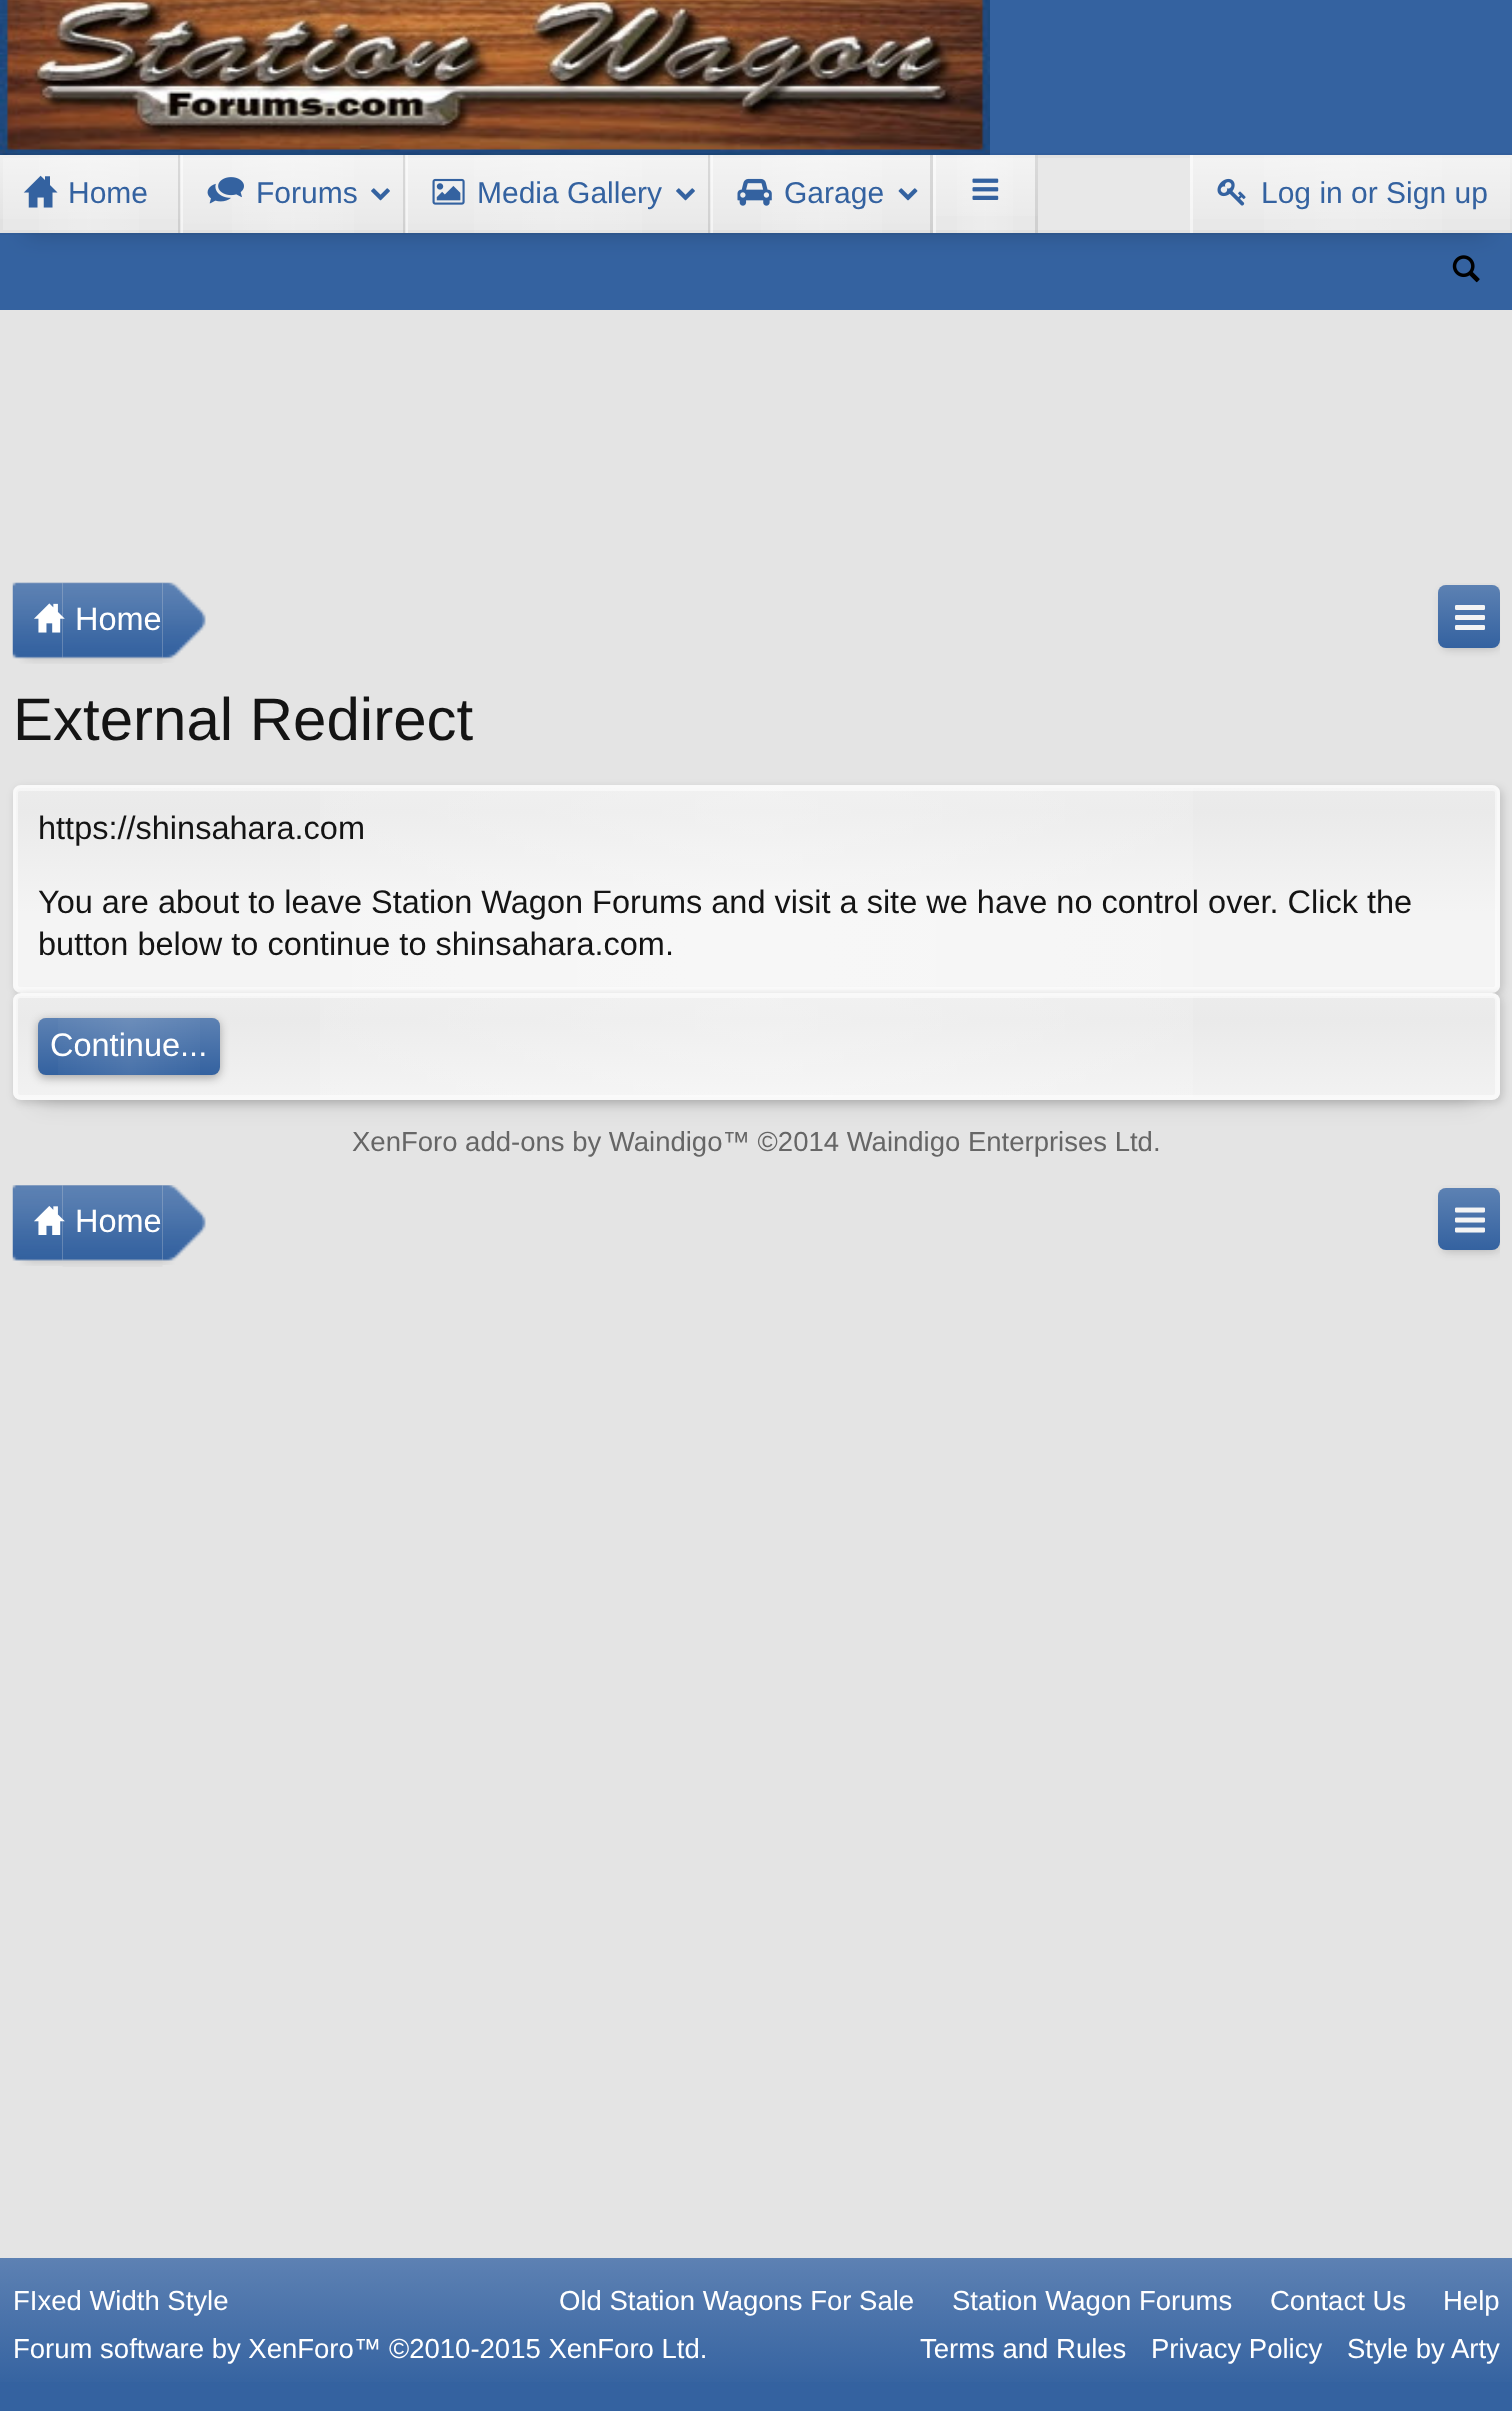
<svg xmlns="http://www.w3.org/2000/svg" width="1512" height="2411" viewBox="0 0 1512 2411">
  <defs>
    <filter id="blur1" x="-50%" y="-200%" width="200%" height="500%"><feGaussianBlur stdDeviation="12.5"/></filter>
    <linearGradient id="g1" gradientUnits="userSpaceOnUse" x1="0" y1="194" x2="178" y2="194"><stop offset="0" stop-color="#ffffff" stop-opacity="0"/><stop offset="0.5" stop-color="#ffffff" stop-opacity="0.2"/><stop offset="1" stop-color="#ffffff" stop-opacity="0"/></linearGradient>
    <linearGradient id="g2" gradientUnits="userSpaceOnUse" x1="89" y1="155" x2="89" y2="233"><stop offset="0" stop-color="#ffffff" stop-opacity="0.5"/><stop offset="1" stop-color="#ffffff" stop-opacity="0"/></linearGradient>
    <linearGradient id="g3" gradientUnits="userSpaceOnUse" x1="183" y1="194" x2="403" y2="194"><stop offset="0" stop-color="#ffffff" stop-opacity="0"/><stop offset="0.5" stop-color="#ffffff" stop-opacity="0.2"/><stop offset="1" stop-color="#ffffff" stop-opacity="0"/></linearGradient>
    <linearGradient id="g4" gradientUnits="userSpaceOnUse" x1="293" y1="155" x2="293" y2="233"><stop offset="0" stop-color="#ffffff" stop-opacity="0.5"/><stop offset="1" stop-color="#ffffff" stop-opacity="0"/></linearGradient>
    <linearGradient id="g5" gradientUnits="userSpaceOnUse" x1="408" y1="194" x2="708" y2="194"><stop offset="0" stop-color="#ffffff" stop-opacity="0"/><stop offset="0.5" stop-color="#ffffff" stop-opacity="0.2"/><stop offset="1" stop-color="#ffffff" stop-opacity="0"/></linearGradient>
    <linearGradient id="g6" gradientUnits="userSpaceOnUse" x1="558" y1="155" x2="558" y2="233"><stop offset="0" stop-color="#ffffff" stop-opacity="0.5"/><stop offset="1" stop-color="#ffffff" stop-opacity="0"/></linearGradient>
    <linearGradient id="g7" gradientUnits="userSpaceOnUse" x1="713" y1="194" x2="930" y2="194"><stop offset="0" stop-color="#ffffff" stop-opacity="0"/><stop offset="0.5" stop-color="#ffffff" stop-opacity="0.2"/><stop offset="1" stop-color="#ffffff" stop-opacity="0"/></linearGradient>
    <linearGradient id="g8" gradientUnits="userSpaceOnUse" x1="821" y1="155" x2="821" y2="233"><stop offset="0" stop-color="#ffffff" stop-opacity="0.5"/><stop offset="1" stop-color="#ffffff" stop-opacity="0"/></linearGradient>
    <linearGradient id="g9" gradientUnits="userSpaceOnUse" x1="935" y1="194" x2="1035" y2="194"><stop offset="0" stop-color="#ffffff" stop-opacity="0"/><stop offset="0.5" stop-color="#ffffff" stop-opacity="0.2"/><stop offset="1" stop-color="#ffffff" stop-opacity="0"/></linearGradient>
    <linearGradient id="g10" gradientUnits="userSpaceOnUse" x1="985" y1="155" x2="985" y2="233"><stop offset="0" stop-color="#ffffff" stop-opacity="0.5"/><stop offset="1" stop-color="#ffffff" stop-opacity="0"/></linearGradient>
    <linearGradient id="g11" gradientUnits="userSpaceOnUse" x1="1193" y1="194" x2="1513" y2="194"><stop offset="0" stop-color="#ffffff" stop-opacity="0"/><stop offset="0.5" stop-color="#ffffff" stop-opacity="0.2"/><stop offset="1" stop-color="#ffffff" stop-opacity="0"/></linearGradient>
    <linearGradient id="g12" gradientUnits="userSpaceOnUse" x1="1353" y1="155" x2="1353" y2="233"><stop offset="0" stop-color="#ffffff" stop-opacity="0.5"/><stop offset="1" stop-color="#ffffff" stop-opacity="0"/></linearGradient>
    <filter id="blur2" x="-50%" y="-200%" width="200%" height="500%"><feGaussianBlur stdDeviation="4"/></filter>
    <clipPath id="clip1"><rect x="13" y="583" width="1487" height="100"/></clipPath>
    <linearGradient id="g13" gradientUnits="userSpaceOnUse" x1="1469" y1="585" x2="1469" y2="648"><stop offset="0" stop-color="#ffffff" stop-opacity="0.2"/><stop offset="1" stop-color="#ffffff" stop-opacity="0"/></linearGradient>
    <clipPath id="clip2"><rect x="13" y="785" width="1487" height="208" rx="8"/></clipPath>
    <linearGradient id="g14" gradientUnits="userSpaceOnUse" x1="756" y1="787" x2="756" y2="990"><stop offset="0" stop-color="#ececec"/><stop offset="0.12" stop-color="#eaeaea"/><stop offset="0.62" stop-color="#f4f4f4"/></linearGradient>
    <linearGradient id="g15" gradientUnits="userSpaceOnUse" x1="15" y1="889" x2="1498" y2="889"><stop offset="0" stop-color="#ffffff" stop-opacity="0"/><stop offset="0.5" stop-color="#ffffff" stop-opacity="0.3"/><stop offset="1" stop-color="#ffffff" stop-opacity="0"/></linearGradient>
    <clipPath id="clip3"><rect x="13" y="993" width="1487" height="107" rx="8"/></clipPath>
    <linearGradient id="g16" gradientUnits="userSpaceOnUse" x1="756" y1="995" x2="756" y2="1120"><stop offset="0" stop-color="#ececec"/><stop offset="0.2" stop-color="#eaeaea"/><stop offset="1" stop-color="#f4f4f4"/></linearGradient>
    <linearGradient id="g17" gradientUnits="userSpaceOnUse" x1="15" y1="1046" x2="1498" y2="1046"><stop offset="0" stop-color="#ffffff" stop-opacity="0"/><stop offset="0.5" stop-color="#ffffff" stop-opacity="0.3"/><stop offset="1" stop-color="#ffffff" stop-opacity="0"/></linearGradient>
    <filter id="blur3" x="-50%" y="-200%" width="200%" height="500%"><feGaussianBlur stdDeviation="5"/></filter>
    <linearGradient id="g18" gradientUnits="userSpaceOnUse" x1="38" y1="1046" x2="220" y2="1046"><stop offset="0" stop-color="#ffffff" stop-opacity="0"/><stop offset="0.5" stop-color="#ffffff" stop-opacity="0.1"/><stop offset="1" stop-color="#ffffff" stop-opacity="0"/></linearGradient>
    <linearGradient id="g19" gradientUnits="userSpaceOnUse" x1="129" y1="1018" x2="129" y2="1075"><stop offset="0" stop-color="#ffffff" stop-opacity="0.2"/><stop offset="1" stop-color="#ffffff" stop-opacity="0"/></linearGradient>
    <clipPath id="clip4"><rect x="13" y="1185" width="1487" height="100"/></clipPath>
    <linearGradient id="g20" gradientUnits="userSpaceOnUse" x1="1469" y1="1188" x2="1469" y2="1250"><stop offset="0" stop-color="#ffffff" stop-opacity="0.2"/><stop offset="1" stop-color="#ffffff" stop-opacity="0"/></linearGradient>
    <linearGradient id="g21" gradientUnits="userSpaceOnUse" x1="756" y1="2258" x2="756" y2="2390"><stop offset="0" stop-color="#5d81b3"/><stop offset="1" stop-color="#3462a0"/></linearGradient>
  </defs>
  <rect width="100%" height="100%" fill="#3462a0"/>
  <image x="0" y="0" width="990" height="155" href="img1.png"/>
  <rect x="25" y="205" width="1463" height="28" fill="#000000" fill-opacity="0.2" filter="url(#blur1)"/>
  <rect x="-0.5" y="154.5" width="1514" height="79" fill="none" stroke="#000000" stroke-opacity="0.03" stroke-width="3"/>
  <rect x="1.5" y="156.5" width="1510" height="75" fill="#e8e8e8" stroke="#e1e1e1" stroke-width="3"/>
  <rect x="39" y="155" width="100" height="78" fill="url(#g1)"/>
  <rect x="0" y="155" width="180" height="64" fill="url(#g2)"/>
  <rect x="178" y="155" width="3" height="78" fill="#000000" fill-opacity="0.1"/>
  <image x="23" y="175" width="35" height="33" href="img2.png"/>
  <text x="68" y="203" font-family="Liberation Sans" font-size="30" fill="#3462a0">Home</text>
  <rect x="232" y="155" width="122" height="78" fill="url(#g3)"/>
  <rect x="180" y="155" width="225" height="69" fill="url(#g4)"/>
  <rect x="403" y="155" width="3" height="78" fill="#000000" fill-opacity="0.1"/>
  <rect x="180" y="155" width="3" height="78" fill="#ffffff" fill-opacity="0.5"/>
  <image x="207" y="177" width="37" height="27" href="img3.png"/>
  <text x="256" y="203" font-family="Liberation Sans" font-size="30" fill="#3462a0">Forums</text>
  <image x="371" y="188" width="19" height="13" href="img4.png"/>
  <rect x="474" y="155" width="168" height="78" fill="url(#g5)"/>
  <rect x="405" y="155" width="305" height="69" fill="url(#g6)"/>
  <rect x="708" y="155" width="3" height="78" fill="#000000" fill-opacity="0.1"/>
  <rect x="405" y="155" width="3" height="78" fill="#ffffff" fill-opacity="0.5"/>
  <image x="432" y="178" width="33" height="27" href="img5.png"/>
  <text x="477" y="203" font-family="Liberation Sans" font-size="30" fill="#3462a0">Media Gallery</text>
  <image x="676" y="188" width="19" height="13" href="img6.png"/>
  <rect x="761" y="155" width="121" height="78" fill="url(#g7)"/>
  <rect x="710" y="155" width="223" height="69" fill="url(#g8)"/>
  <rect x="930" y="155" width="3" height="78" fill="#000000" fill-opacity="0.1"/>
  <rect x="710" y="155" width="3" height="78" fill="#ffffff" fill-opacity="0.5"/>
  <image x="737" y="178" width="35" height="28" href="img7.png"/>
  <text x="784" y="203" font-family="Liberation Sans" font-size="30" fill="#3462a0">Garage</text>
  <image x="898" y="188" width="20" height="13" href="img8.png"/>
  <rect x="957" y="155" width="56" height="78" fill="url(#g9)"/>
  <rect x="933" y="155" width="105" height="61" fill="url(#g10)"/>
  <rect x="1035" y="155" width="3" height="78" fill="#000000" fill-opacity="0.1"/>
  <rect x="933" y="155" width="3" height="78" fill="#ffffff" fill-opacity="0.5"/>
  <image x="972" y="178" width="27" height="22" href="img9.png"/>
  <rect x="1264" y="155" width="178" height="78" fill="url(#g11)"/>
  <rect x="1190" y="155" width="322" height="64" fill="url(#g12)"/>
  <rect x="1190" y="155" width="3" height="78" fill="#ffffff" fill-opacity="0.5"/>
  <image x="1217" y="178" width="29" height="28" href="img10.png"/>
  <text x="1261" y="203" font-family="Liberation Sans" font-size="30" fill="#3462a0">Log in or Sign up</text>
  <image x="1452" y="255" width="28" height="28" href="img11.png"/>
  <rect x="0" y="310" width="1512" height="1948" fill="#e4e4e4"/>
  <image x="62" y="582" width="101" height="82" href="img12.png"/>
  <image x="12" y="582" width="51" height="82" href="img13.png"/>
  <image x="34" y="603" width="31" height="30" href="img14.png"/>
  <text x="75" y="630" font-family="Liberation Sans" font-size="32.5" fill="#ffffff">Home</text>
  <image x="162" y="582" width="44" height="81" href="img15.png"/>
  <rect x="1445" y="600" width="48" height="48" fill="#000000" fill-opacity="0.1" filter="url(#blur2)"/>
  <g clip-path="url(#clip1)">
    <rect x="1440" y="588" width="63" height="62" rx="8" fill="#000000" fill-opacity="0.1" filter="url(#blur2)"/>
  </g>
  <rect x="1438" y="585" width="62" height="63" rx="8" fill="#3462a0"/>
  <rect x="1438" y="585" width="62" height="63" rx="8" fill="url(#g13)"/>
  <image x="1455" y="605" width="30" height="25" href="img16.png"/>
  <text x="13" y="740" font-family="Liberation Sans" font-size="60" fill="#141414">External Redirect</text>
  <rect x="15" y="788" width="1488" height="207" rx="8" fill="#000000" fill-opacity="0.15" filter="url(#blur2)"/>
  <g clip-path="url(#clip2)">
    <rect x="13" y="788" width="1487" height="202" fill="url(#g14)"/>
  </g>
  <rect x="320" y="788" width="873" height="202" fill="url(#g15)"/>
  <rect x="16.5" y="789.5" width="1480" height="199" rx="3.5" fill="none" stroke="#ffffff" stroke-opacity="0.5" stroke-width="3"/>
  <rect x="14.5" y="786.5" width="1484" height="205" rx="6.5" fill="none" stroke="#f9f9f9" stroke-width="3"/>
  <text x="38" y="839" font-family="Liberation Sans" font-size="32.5" fill="#141414">https://shinsahara.com</text>
  <text x="38" y="913" font-family="Liberation Sans" font-size="32.5" fill="#141414">You are about to leave Station Wagon Forums and visit a site we have no control over. Click the</text>
  <text x="38" y="955" font-family="Liberation Sans" font-size="32.5" fill="#141414">button below to continue to shinsahara.com.</text>
  <rect x="38" y="1043" width="1437" height="57" fill="#000000" fill-opacity="0.2" filter="url(#blur1)"/>
  <rect x="15" y="995" width="1488" height="108" rx="8" fill="#000000" fill-opacity="0.15" filter="url(#blur2)"/>
  <g clip-path="url(#clip3)">
    <rect x="13" y="995" width="1487" height="103" fill="url(#g16)"/>
  </g>
  <rect x="320" y="996" width="873" height="101" fill="url(#g17)"/>
  <rect x="16.5" y="996.5" width="1480" height="100" rx="3.5" fill="none" stroke="#ffffff" stroke-opacity="0.5" stroke-width="3"/>
  <rect x="14.5" y="994.5" width="1484" height="104" rx="6.5" fill="none" stroke="#f9f9f9" stroke-width="3"/>
  <rect x="38" y="1020" width="182" height="58" rx="8" fill="#000000" fill-opacity="0.3" filter="url(#blur3)"/>
  <rect x="38" y="1018" width="182" height="57" rx="8" fill="#3462a0"/>
  <rect x="58" y="1018" width="142" height="57" fill="url(#g18)"/>
  <rect x="38" y="1018" width="182" height="57" rx="8" fill="url(#g19)"/>
  <text x="50" y="1056" font-family="Liberation Sans" font-size="32.5" fill="#ffffff">Continue...</text>
  <text x="352" y="1151" font-family="Liberation Sans" font-size="27.5" fill="#666666">XenForo add-ons by Waindigo™ ©2014 Waindigo Enterprises Ltd.</text>
  <image x="62" y="1185" width="101" height="82" href="img17.png"/>
  <image x="12" y="1185" width="51" height="81" href="img18.png"/>
  <image x="34" y="1206" width="31" height="29" href="img19.png"/>
  <text x="75" y="1232" font-family="Liberation Sans" font-size="32.5" fill="#ffffff">Home</text>
  <image x="162" y="1185" width="44" height="80" href="img20.png"/>
  <rect x="1445" y="1203" width="48" height="47" fill="#000000" fill-opacity="0.1" filter="url(#blur2)"/>
  <g clip-path="url(#clip4)">
    <rect x="1440" y="1190" width="63" height="63" rx="8" fill="#000000" fill-opacity="0.1" filter="url(#blur2)"/>
  </g>
  <rect x="1438" y="1188" width="62" height="62" rx="8" fill="#3462a0"/>
  <rect x="1438" y="1188" width="62" height="62" rx="8" fill="url(#g20)"/>
  <image x="1455" y="1207" width="30" height="26" href="img21.png"/>
  <rect x="0" y="2258" width="1512" height="124" fill="url(#g21)"/>
  <text x="13" y="2310" font-family="Liberation Sans" font-size="27.5" fill="#ffffff">FIxed Width Style</text>
  <text x="559" y="2310" font-family="Liberation Sans" font-size="27.5" fill="#ffffff">Old Station Wagons For Sale</text>
  <text x="952" y="2310" font-family="Liberation Sans" font-size="27.5" fill="#ffffff">Station Wagon Forums</text>
  <text x="1270" y="2310" font-family="Liberation Sans" font-size="27.5" fill="#ffffff">Contact Us</text>
  <text x="1443" y="2310" font-family="Liberation Sans" font-size="27.5" fill="#ffffff">Help</text>
  <text x="13" y="2358" font-family="Liberation Sans" font-size="27.5" fill="#ffffff">Forum software by XenForo™ ©2010-2015 XenForo Ltd.</text>
  <text x="920" y="2358" font-family="Liberation Sans" font-size="27.5" fill="#ffffff">Terms and Rules</text>
  <text x="1151" y="2358" font-family="Liberation Sans" font-size="27.5" fill="#ffffff">Privacy Policy</text>
  <text x="1347" y="2358" font-family="Liberation Sans" font-size="27.5" fill="#ffffff">Style by Arty</text>
</svg>
